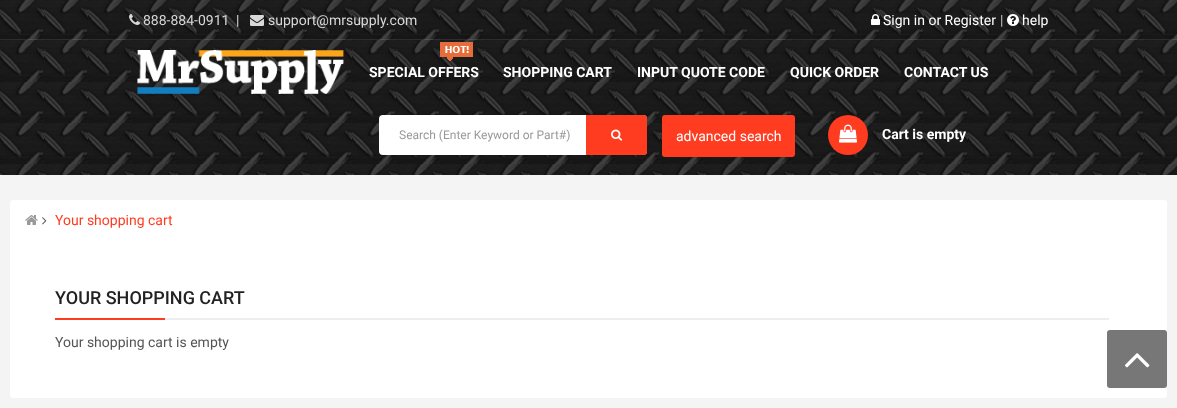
<svg xmlns="http://www.w3.org/2000/svg" width="1177" height="408" viewBox="0 0 1177 408">
  <rect width="100%" height="100%" fill="#f4f4f4"/>
  <image x="0" y="0" width="1177" height="175" href="img1.png"/>
  <rect x="0" y="39" width="1177" height="1" fill="#ffffff" fill-opacity="0.1"/>
  <image x="129" y="14" width="11" height="11" href="img2.png"/>
  <text x="143" y="25" font-family="Roboto" font-size="14" fill="#d9d7d7">888-884-0911</text>
  <text x="236" y="25" font-family="Roboto" font-size="14" fill="#d9d7d7">|</text>
  <image x="250" y="15" width="14" height="11" href="img3.png"/>
  <text x="268" y="25" font-family="Roboto" font-size="14" fill="#d9d7d7">support@mrsupply.com</text>
  <image x="871" y="14" width="9" height="11" href="img4.png"/>
  <text x="883" y="25" font-family="Roboto" font-size="14" fill="#ffffff">Sign in or Register</text>
  <text x="1000" y="25" font-family="Roboto" font-size="14" fill="#c4c2c2">|</text>
  <image x="1007" y="14" width="12" height="12" href="img5.png"/>
  <text x="1022" y="25" font-family="Roboto" font-size="14" fill="#ffffff">help</text>
  <image x="0" y="40" width="1177" height="10" href="img6.png"/>
  <image x="137" y="50" width="207" height="44" href="img7.png"/>
  <image x="440" y="42" width="33" height="19" href="img8.png"/>
  <text x="369" y="77" font-family="Roboto" font-size="14" font-weight="bold" fill="#ffffff">SPECIAL OFFERS</text>
  <text x="503" y="77" font-family="Roboto" font-size="14" font-weight="bold" fill="#ffffff">SHOPPING CART</text>
  <text x="637" y="77" font-family="Roboto" font-size="14" font-weight="bold" fill="#ffffff">INPUT QUOTE CODE</text>
  <text x="790" y="77" font-family="Roboto" font-size="14" font-weight="bold" fill="#ffffff">QUICK ORDER</text>
  <text x="904" y="77" font-family="Roboto" font-size="14" font-weight="bold" fill="#ffffff">CONTACT US</text>
  <rect x="379" y="115" width="268" height="40" rx="4" fill="#ffffff"/>
  <text x="399" y="139" font-family="Roboto" font-size="12" fill="#999999">Search (Enter Keyword or Part#)</text>
  <path d="M586 115H644C645.5 115 647 116.5 647 118V152C647 153.5 645.5 155 644 155H586Z" fill="#ff3c20"/>
  <image x="611" y="129" width="12" height="12" href="img9.png"/>
  <rect x="662" y="115" width="133" height="42" rx="3" fill="#ff3c20"/>
  <text x="676" y="141" font-family="Roboto" font-size="14" fill="#ffffff">advanced search</text>
  <circle cx="848" cy="135" r="20" fill="#ff3c20"/>
  <image x="839" y="124" width="18" height="19" href="img10.png"/>
  <text x="882" y="139" font-family="Roboto" font-size="14" font-weight="bold" fill="#ffffff">Cart is empty</text>
  <rect x="10" y="200" width="1157" height="198" rx="3" fill="#ffffff"/>
  <image x="25" y="215" width="13" height="10" href="img11.png"/>
  <image x="42" y="217" width="5" height="8" href="img12.png"/>
  <text x="55" y="225" font-family="Roboto" font-size="14" fill="#ff3c20">Your shopping cart</text>
  <rect x="165" y="318" width="944" height="2" fill="#eeeeee"/>
  <text x="55" y="304" font-family="Roboto" font-size="18" font-weight="500" fill="#222222">YOUR SHOPPING CART</text>
  <rect x="55" y="318" width="110" height="2" fill="#ff3c20"/>
  <text x="55" y="347" font-family="Roboto" font-size="14" fill="#555555">Your shopping cart is empty</text>
  <rect x="1107" y="330" width="60" height="58" rx="3" fill="#777777"/>
  <image x="1125" y="353" width="25" height="15" href="img13.png"/>
</svg>
